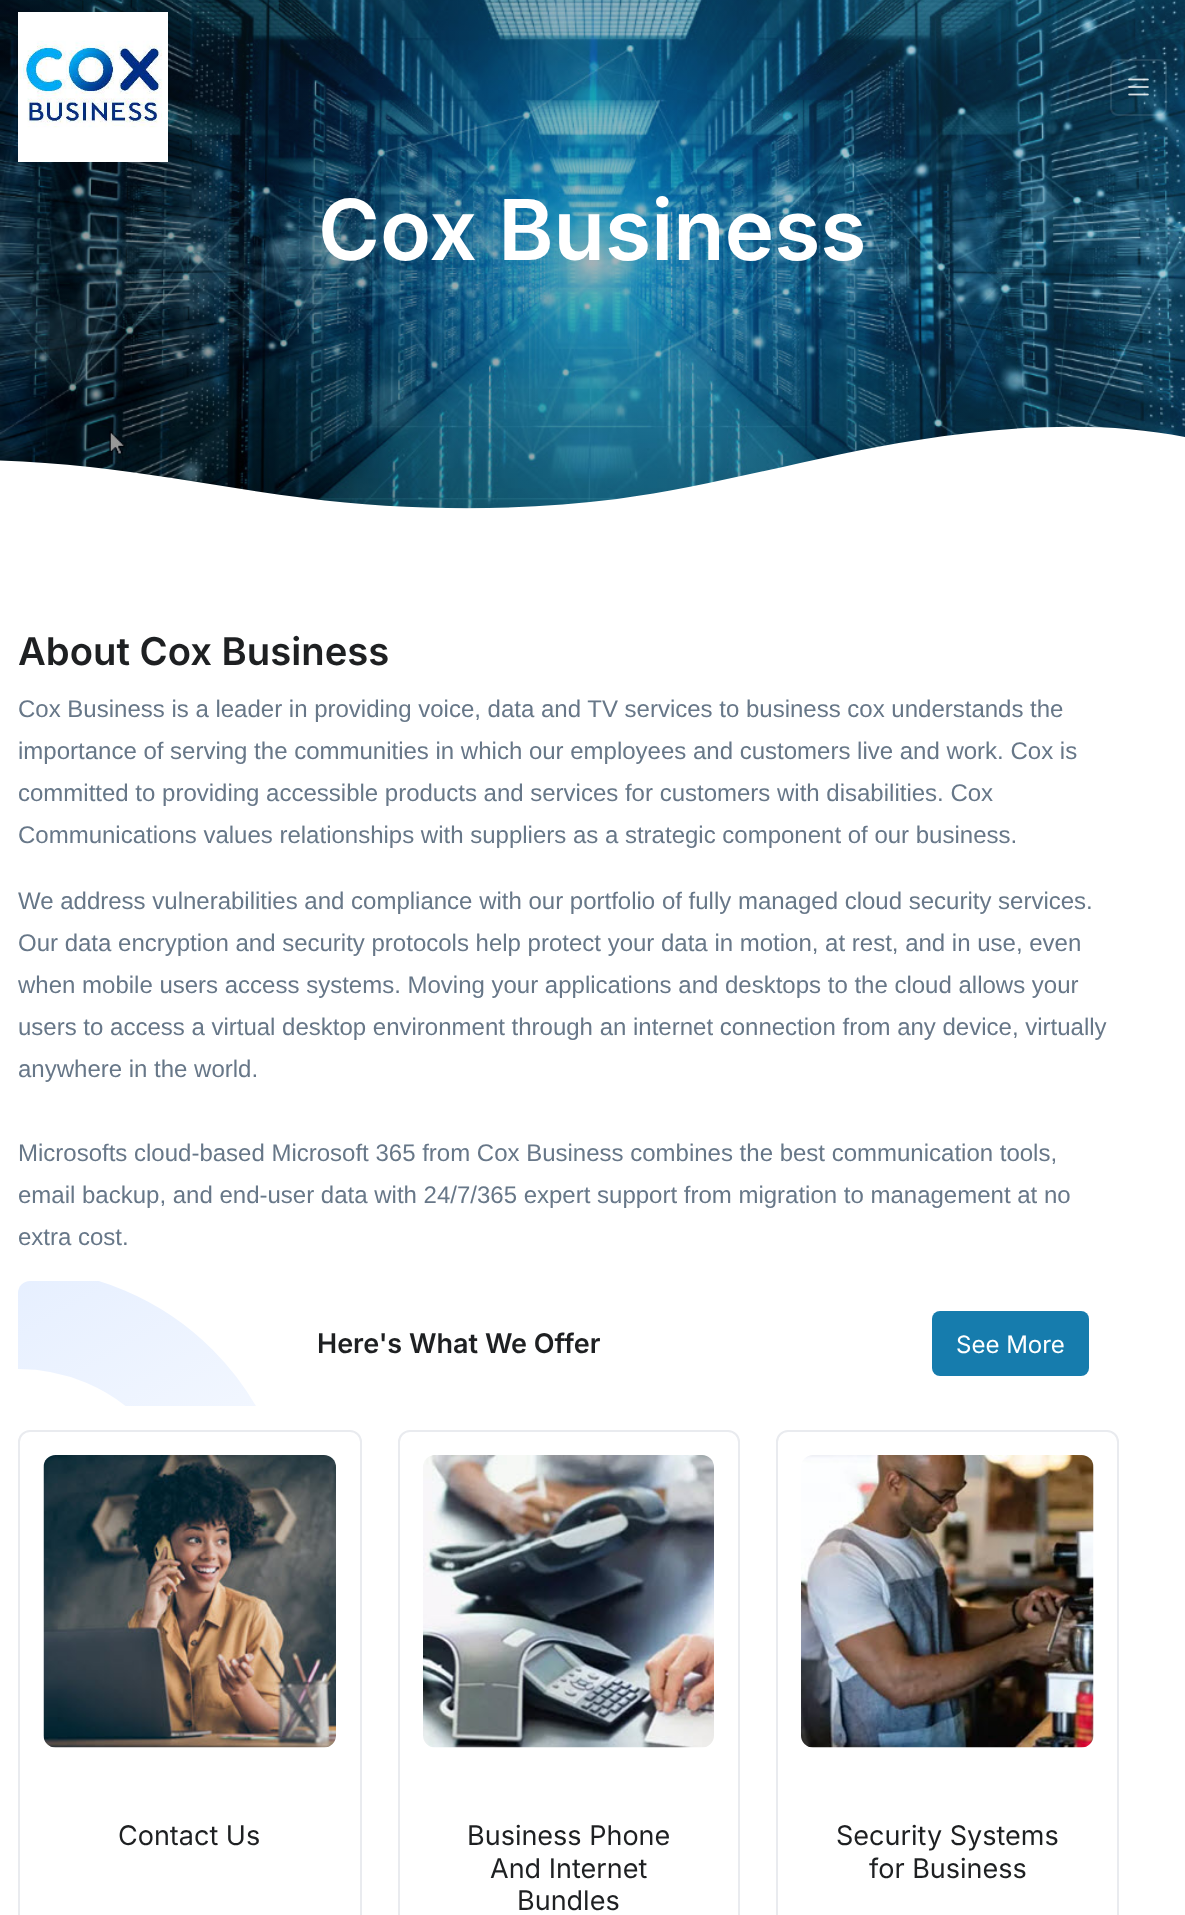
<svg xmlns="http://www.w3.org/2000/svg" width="1185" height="1915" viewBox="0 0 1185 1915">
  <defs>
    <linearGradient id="g1" gradientUnits="userSpaceOnUse" x1="169" y1="678" x2="1016" y2="-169"><stop offset="0.15" stop-color="#000000" stop-opacity="0.4"/><stop offset="1" stop-color="#167cad" stop-opacity="0.35"/></linearGradient>
    <clipPath id="clip1"><rect x="18" y="1281" width="1101" height="125" rx="12"/></clipPath>
    <linearGradient id="g2" gradientUnits="userSpaceOnUse" x1="215" y1="1748" x2="-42" y2="1303"><stop offset="0" stop-color="#ffffff"/><stop offset="1" stop-color="#e6efff"/></linearGradient>
  </defs>
  <rect width="100%" height="100%" fill="#ffffff"/>
  <image x="0" y="0" width="1185" height="509" href="img3.png"/>
  <rect x="0" y="0" width="1185" height="509" fill="url(#g1)"/>
  <image x="18" y="12" width="150" height="150" href="img1.png"/>
  <rect x="1111" y="60" width="55" height="55" rx="7" fill="none" stroke="#ffffff" stroke-opacity="0.1" stroke-width="2"/>
  <image x="1128" y="78" width="21" height="18" href="img2.png"/>
  <text x="318" y="260" font-family="Inter" font-size="84" font-weight="600" fill="#ffffff">Cox Business</text>
  <path d="M90 467C163 475 233 489 305 498C407 511 514 512 617 499C716 486 820 455 918 440C1005 426 1101 420 1185 437V509H-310V489C-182 460-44 452 90 467Z" fill="#ffffff"/>
  <text x="18" y="665" font-family="Inter" font-size="38.25" font-weight="600" fill="#1e2022">About Cox Business</text>
  <text x="18" y="717" font-family="Liberation Sans" font-size="24" fill="#677788">Cox Business is a leader in providing voice, data and TV services to business cox understands the</text>
  <text x="18" y="759" font-family="Liberation Sans" font-size="24" fill="#677788">importance of serving the communities in which our employees and customers live and work. Cox is</text>
  <text x="18" y="801" font-family="Liberation Sans" font-size="24" fill="#677788">committed to providing accessible products and services for customers with disabilities. Cox</text>
  <text x="18" y="843" font-family="Liberation Sans" font-size="24" fill="#677788">Communications values relationships with suppliers as a strategic component of our business.</text>
  <text x="18" y="909" font-family="Liberation Sans" font-size="24" fill="#677788">We address vulnerabilities and compliance with our portfolio of fully managed cloud security services.</text>
  <text x="18" y="951" font-family="Liberation Sans" font-size="24" fill="#677788">Our data encryption and security protocols help protect your data in motion, at rest, and in use, even</text>
  <text x="18" y="993" font-family="Liberation Sans" font-size="24" fill="#677788">when mobile users access systems. Moving your applications and desktops to the cloud allows your</text>
  <text x="18" y="1035" font-family="Liberation Sans" font-size="24" fill="#677788">users to access a virtual desktop environment through an internet connection from any device, virtually</text>
  <text x="18" y="1077" font-family="Liberation Sans" font-size="24" fill="#677788">anywhere in the world.</text>
  <text x="18" y="1161" font-family="Liberation Sans" font-size="24" fill="#677788">Microsofts cloud-based Microsoft 365 from Cox Business combines the best communication tools,</text>
  <text x="18" y="1203" font-family="Liberation Sans" font-size="24" fill="#677788">email backup, and end-user data with 24/7/365 expert support from migration to management at no</text>
  <text x="18" y="1245" font-family="Liberation Sans" font-size="24" fill="#677788">extra cost.</text>
  <g clip-path="url(#clip1)">
    <path d="M18 1319C142.5 1319 243 1420 243 1544C243 1668.5 142.5 1769.5 18 1769.5" fill="none" stroke="url(#g2)" stroke-width="100.1"/>
  </g>
  <text x="317" y="1353" font-family="Inter" font-size="27" font-weight="600" fill="#1e2022">Here's What We Offer</text>
  <rect x="932" y="1311" width="157" height="65" rx="8" fill="#167cad"/>
  <text x="956" y="1353" font-family="Inter" font-size="24" fill="#ffffff">See More</text>
  <rect x="19" y="1431" width="342" height="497" rx="11" fill="none" stroke="#e9ebef" stroke-width="2"/>
  <image x="43" y="1455" width="293" height="293" href="img4.png"/>
  <text x="118" y="1845" font-family="Inter" font-size="27" fill="#1e2022">Contact Us</text>
  <rect x="399" y="1431" width="340" height="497" rx="11" fill="none" stroke="#e9ebef" stroke-width="2"/>
  <image x="423" y="1455" width="291" height="293" href="img5.png"/>
  <text x="467" y="1845" font-family="Inter" font-size="27" fill="#1e2022">Business Phone</text>
  <text x="490" y="1878" font-family="Inter" font-size="27" fill="#1e2022">And Internet</text>
  <text x="517" y="1910" font-family="Inter" font-size="27" fill="#1e2022">Bundles</text>
  <rect x="777" y="1431" width="341" height="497" rx="11" fill="none" stroke="#e9ebef" stroke-width="2"/>
  <image x="801" y="1455" width="293" height="293" href="img6.png"/>
  <text x="836" y="1845" font-family="Inter" font-size="27" fill="#1e2022">Security Systems</text>
  <text x="869" y="1878" font-family="Inter" font-size="27" fill="#1e2022">for Business</text>
</svg>
